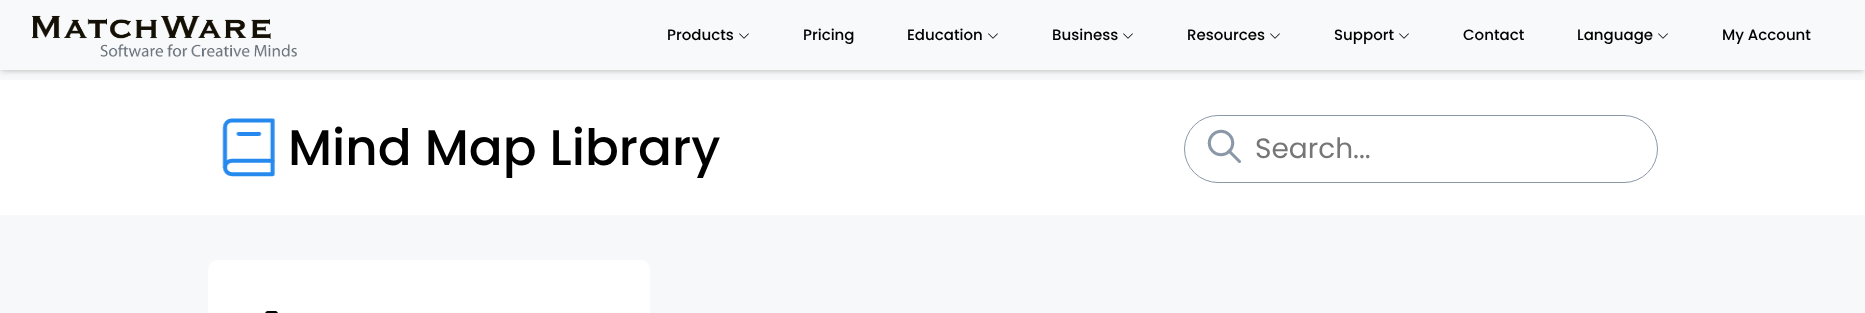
<svg xmlns="http://www.w3.org/2000/svg" width="1865" height="313" viewBox="0 0 1865 313">
  <defs>
    <filter id="blur1" x="-50%" y="-200%" width="200%" height="500%"><feGaussianBlur stdDeviation="3"/></filter>
  </defs>
  <rect width="100%" height="100%" fill="#f6f8f9"/>
  <rect x="1" y="2" width="1863" height="68" fill="#afafaf" filter="url(#blur1)"/>
  <rect x="0" y="0" width="1865" height="70" fill="#f8f9fa"/>
  <image x="32" y="15" width="265" height="42" href="img1.png"/>
  <text x="667" y="40" font-family="Poppins" font-size="15" font-weight="500" fill="#000000">Products</text>
  <image x="739" y="33" width="10" height="6" href="img2.png"/>
  <text x="803" y="40" font-family="Poppins" font-size="15" font-weight="500" fill="#000000">Pricing</text>
  <text x="907" y="40" font-family="Poppins" font-size="15" font-weight="500" fill="#000000">Education</text>
  <image x="988" y="33" width="10" height="6" href="img2.png"/>
  <text x="1052" y="40" font-family="Poppins" font-size="15" font-weight="500" fill="#000000">Business</text>
  <image x="1123" y="33" width="10" height="6" href="img2.png"/>
  <text x="1187" y="40" font-family="Poppins" font-size="15" font-weight="500" fill="#000000">Resources</text>
  <image x="1270" y="33" width="10" height="6" href="img2.png"/>
  <text x="1334" y="40" font-family="Poppins" font-size="15" font-weight="500" fill="#000000">Support</text>
  <image x="1399" y="33" width="10" height="6" href="img2.png"/>
  <text x="1463" y="40" font-family="Poppins" font-size="15" font-weight="500" fill="#000000">Contact</text>
  <text x="1577" y="40" font-family="Poppins" font-size="15" font-weight="500" fill="#000000">Language</text>
  <image x="1658" y="33" width="10" height="6" href="img2.png"/>
  <text x="1722" y="40" font-family="Poppins" font-size="15" font-weight="500" fill="#000000">My Account</text>
  <rect x="0" y="80" width="1865" height="135" fill="#ffffff"/>
  <image x="222" y="118" width="53" height="59" href="img3.png"/>
  <text x="288" y="165" font-family="Poppins" font-size="50" font-weight="500" fill="#000000">Mind Map Library</text>
  <rect x="1184.5" y="115.5" width="473" height="67" rx="33.5" fill="none" stroke="#8b98a8"/>
  <image x="1207" y="129" width="34" height="34" href="img4.png"/>
  <text x="1255" y="158" font-family="Poppins" font-size="28" fill="#767676">Search...</text>
  <rect x="208" y="260" width="442" height="10" fill="#f9f9f9"/>
  <rect x="208" y="260" width="442" height="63" rx="10" fill="#ffffff"/>
  <image x="265" y="311" width="13" height="2" href="img5.png"/>
</svg>
